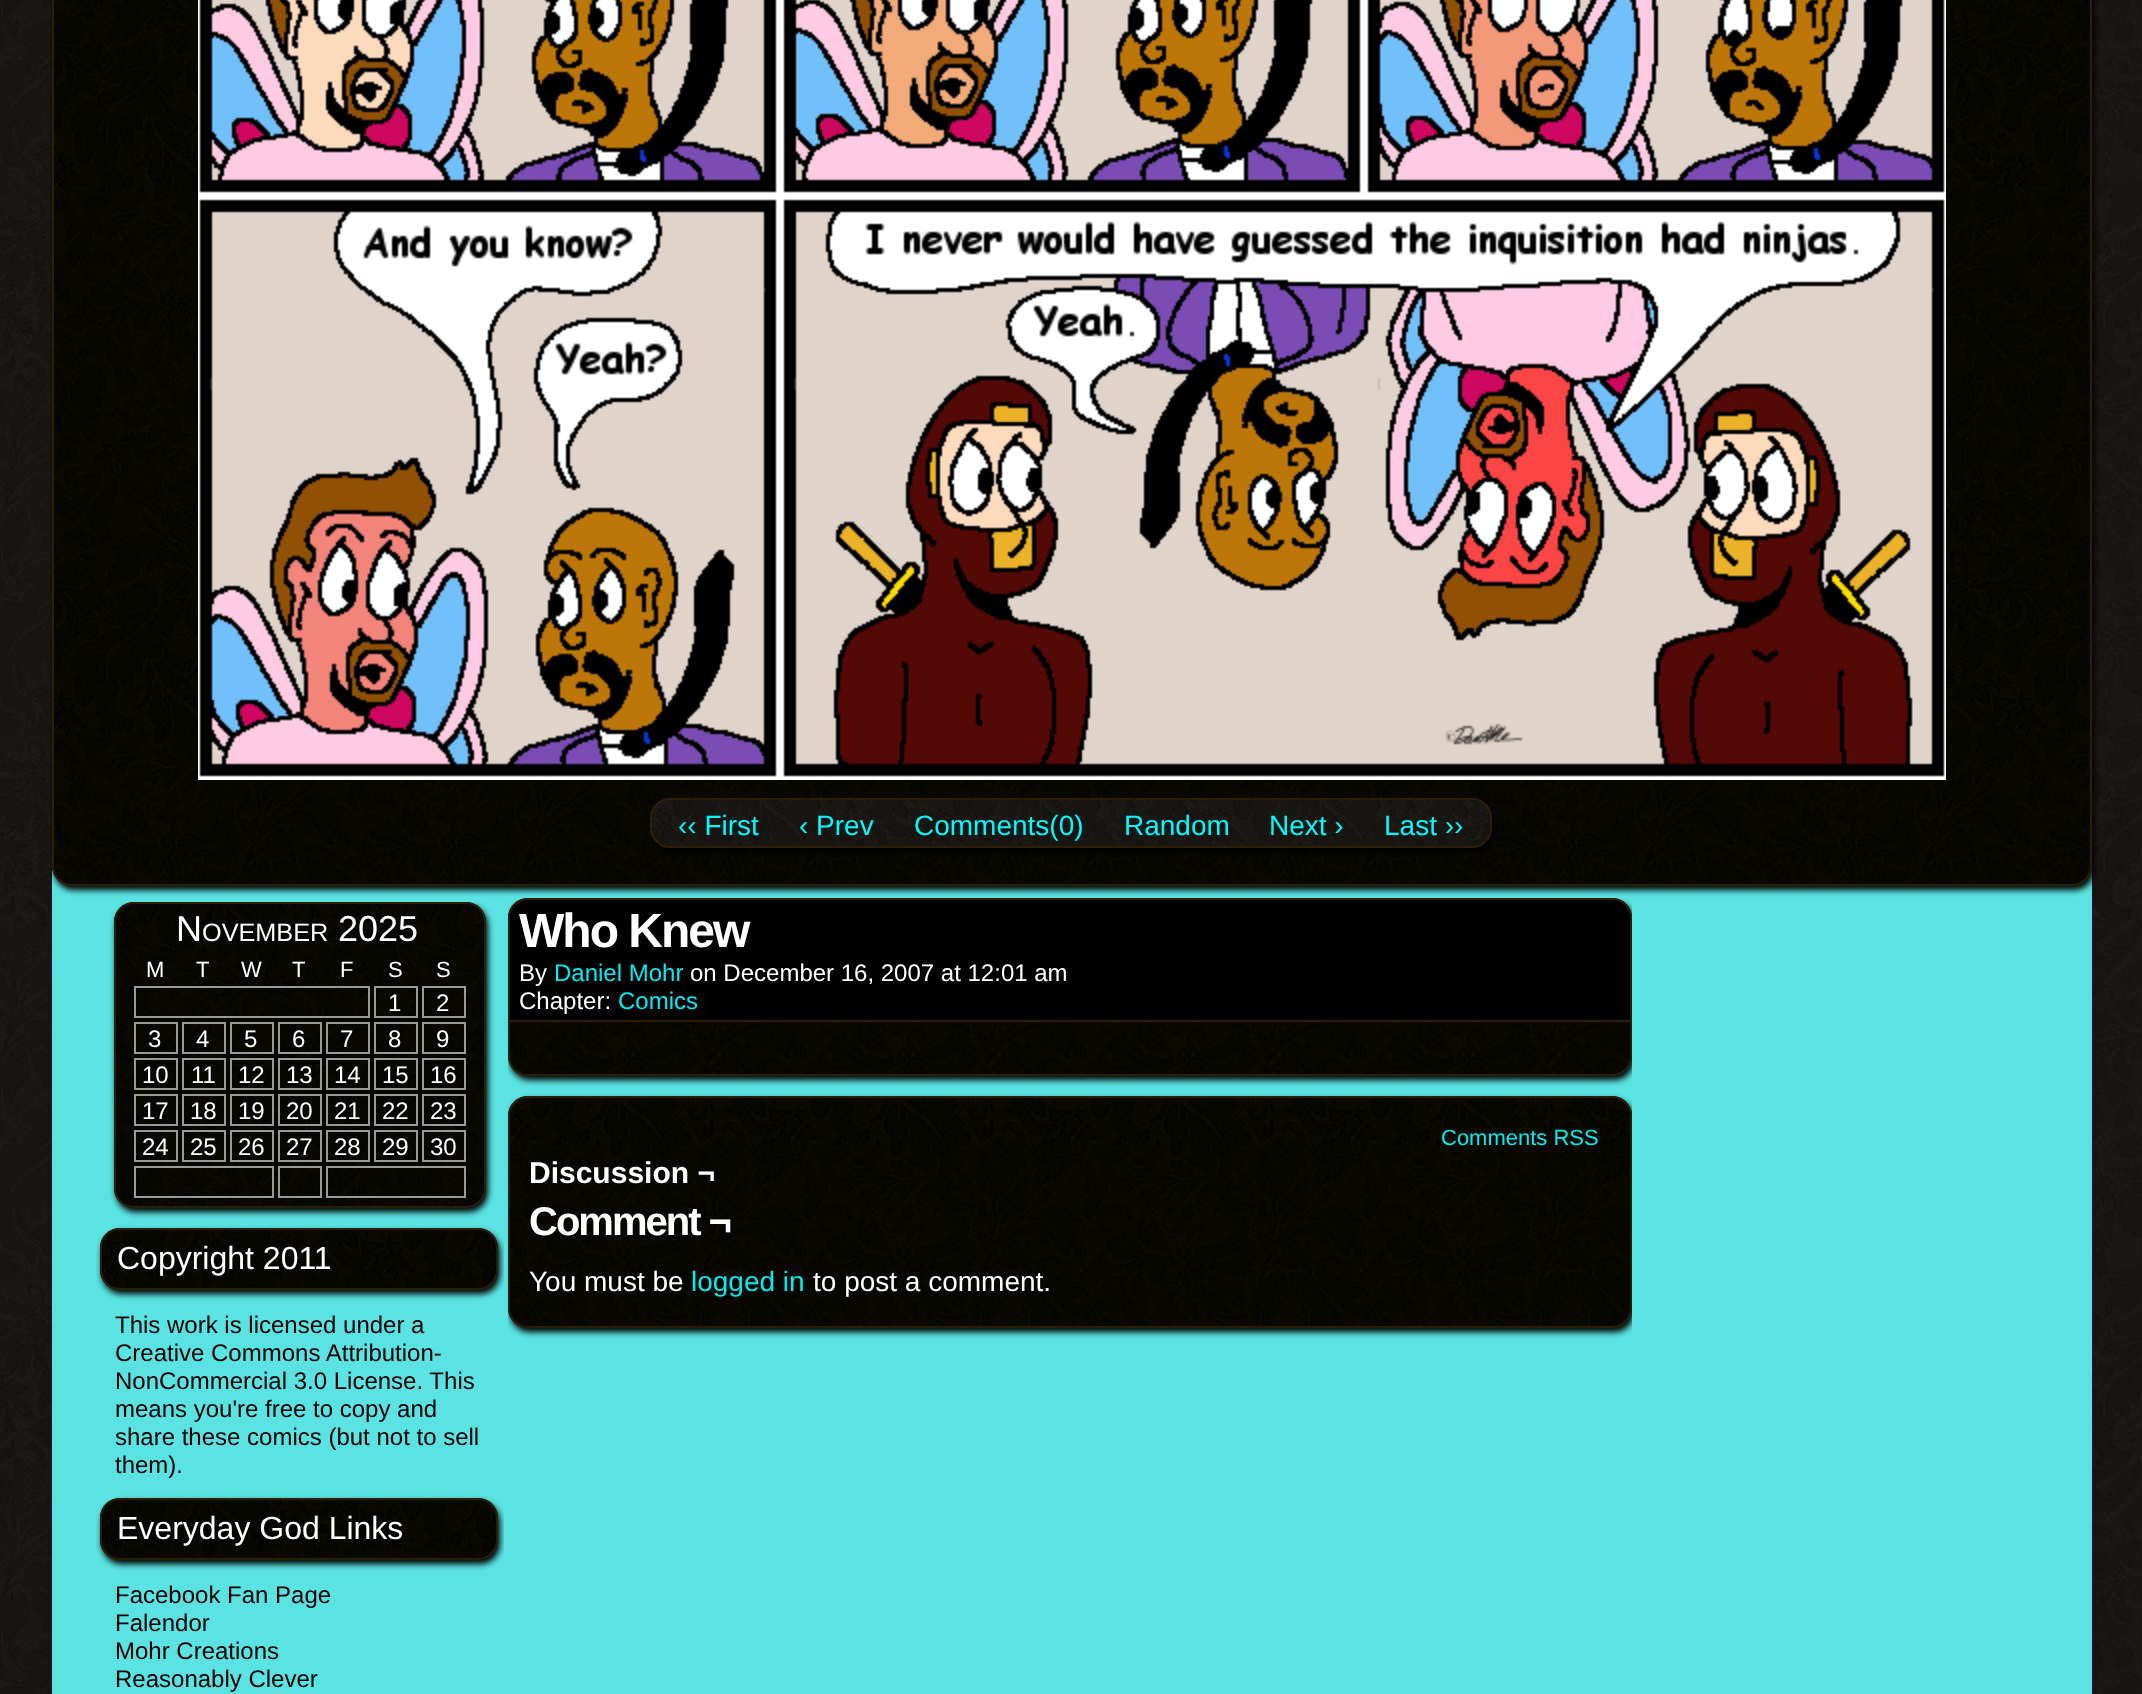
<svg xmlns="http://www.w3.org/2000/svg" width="2142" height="1694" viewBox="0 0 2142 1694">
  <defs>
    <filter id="blur1" x="-50%" y="-200%" width="200%" height="500%"><feGaussianBlur stdDeviation="3"/></filter>
    <clipPath id="clip1"><rect x="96" y="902" width="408" height="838"/></clipPath>
    <clipPath id="clip2"><rect x="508" y="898" width="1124" height="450"/></clipPath>
  </defs>
  <rect width="100%" height="100%" fill="#ffffff"/>
  <image x="0" y="0" width="2142" height="1694" href="img1.png"/>
  <rect x="52" y="866" width="2040" height="828" fill="#5ae3e2"/>
  <rect x="54" y="-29" width="2040" height="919" rx="20" fill="#000000" filter="url(#blur1)"/>
  <image x="52" y="0" width="2040" height="886" href="img2.png"/>
  <rect x="53" y="-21" width="2038" height="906" rx="19" fill="none" stroke="#2d1f04" stroke-width="2"/>
  <image x="198" y="0" width="1748" height="780" href="img3.png"/>
  <rect x="652" y="802" width="842" height="50" rx="20" fill="#000000" filter="url(#blur1)"/>
  <image x="650" y="798" width="842" height="50" href="img4.png"/>
  <rect x="651" y="799" width="840" height="48" rx="19" fill="none" stroke="#2d1f04" stroke-width="2"/>
  <text x="678" y="835" font-family="Liberation Sans" font-size="28" fill="#00faff">‹‹ First</text>
  <text x="799" y="835" font-family="Liberation Sans" font-size="28" fill="#00faff">‹ Prev</text>
  <text x="914" y="835" font-family="Liberation Sans" font-size="28" fill="#00faff">Comments(0)</text>
  <text x="1124" y="835" font-family="Liberation Sans" font-size="28" fill="#00faff">Random</text>
  <text x="1269" y="835" font-family="Liberation Sans" font-size="28" fill="#00faff">Next ›</text>
  <text x="1384" y="835" font-family="Liberation Sans" font-size="28" fill="#00faff">Last ››</text>
  <g clip-path="url(#clip1)">
    <rect x="116" y="906" width="372" height="306" rx="20" fill="#000000" filter="url(#blur1)"/>
  </g>
  <image x="114" y="902" width="372" height="306" href="img5.png"/>
  <rect x="115" y="903" width="370" height="304" rx="19" fill="none" stroke="#2d1f04" stroke-width="2"/>
  <text x="176" y="941" font-family="Liberation Sans" font-size="36" fill="#ffffff">N</text>
  <text x="202" y="941" font-family="Liberation Sans" font-size="25.25" fill="#ffffff">OVEMBER</text>
  <text x="338" y="941" font-family="Liberation Sans" font-size="36" fill="#ffffff">2025</text>
  <text x="146" y="977" font-family="Liberation Sans" font-size="22" fill="#ffffff">M</text>
  <text x="196" y="977" font-family="Liberation Sans" font-size="22" fill="#ffffff">T</text>
  <text x="241" y="977" font-family="Liberation Sans" font-size="22" fill="#ffffff">W</text>
  <text x="292" y="977" font-family="Liberation Sans" font-size="22" fill="#ffffff">T</text>
  <text x="340" y="977" font-family="Liberation Sans" font-size="22" fill="#ffffff">F</text>
  <text x="388" y="977" font-family="Liberation Sans" font-size="22" fill="#ffffff">S</text>
  <text x="436" y="977" font-family="Liberation Sans" font-size="22" fill="#ffffff">S</text>
  <rect x="135" y="987" width="234" height="30" fill="none" stroke="#999999" stroke-width="2"/>
  <rect x="375" y="987" width="42" height="30" fill="none" stroke="#999999" stroke-width="2"/>
  <text x="388" y="1011" font-family="Liberation Sans" font-size="24" fill="#ffffff">1</text>
  <rect x="423" y="987" width="42" height="30" fill="none" stroke="#999999" stroke-width="2"/>
  <text x="436" y="1011" font-family="Liberation Sans" font-size="24" fill="#ffffff">2</text>
  <rect x="135" y="1023" width="42" height="30" fill="none" stroke="#999999" stroke-width="2"/>
  <text x="148" y="1047" font-family="Liberation Sans" font-size="24" fill="#ffffff">3</text>
  <rect x="183" y="1023" width="42" height="30" fill="none" stroke="#999999" stroke-width="2"/>
  <text x="196" y="1047" font-family="Liberation Sans" font-size="24" fill="#ffffff">4</text>
  <rect x="231" y="1023" width="42" height="30" fill="none" stroke="#999999" stroke-width="2"/>
  <text x="244" y="1047" font-family="Liberation Sans" font-size="24" fill="#ffffff">5</text>
  <rect x="279" y="1023" width="42" height="30" fill="none" stroke="#999999" stroke-width="2"/>
  <text x="292" y="1047" font-family="Liberation Sans" font-size="24" fill="#ffffff">6</text>
  <rect x="327" y="1023" width="42" height="30" fill="none" stroke="#999999" stroke-width="2"/>
  <text x="340" y="1047" font-family="Liberation Sans" font-size="24" fill="#ffffff">7</text>
  <rect x="375" y="1023" width="42" height="30" fill="none" stroke="#999999" stroke-width="2"/>
  <text x="388" y="1047" font-family="Liberation Sans" font-size="24" fill="#ffffff">8</text>
  <rect x="423" y="1023" width="42" height="30" fill="none" stroke="#999999" stroke-width="2"/>
  <text x="436" y="1047" font-family="Liberation Sans" font-size="24" fill="#ffffff">9</text>
  <rect x="135" y="1059" width="42" height="30" fill="none" stroke="#999999" stroke-width="2"/>
  <text x="142" y="1083" font-family="Liberation Sans" font-size="24" fill="#ffffff">10</text>
  <rect x="183" y="1059" width="42" height="30" fill="none" stroke="#999999" stroke-width="2"/>
  <text x="191" y="1083" font-family="Liberation Sans" font-size="24" fill="#ffffff">11</text>
  <rect x="231" y="1059" width="42" height="30" fill="none" stroke="#999999" stroke-width="2"/>
  <text x="238" y="1083" font-family="Liberation Sans" font-size="24" fill="#ffffff">12</text>
  <rect x="279" y="1059" width="42" height="30" fill="none" stroke="#999999" stroke-width="2"/>
  <text x="286" y="1083" font-family="Liberation Sans" font-size="24" fill="#ffffff">13</text>
  <rect x="327" y="1059" width="42" height="30" fill="none" stroke="#999999" stroke-width="2"/>
  <text x="334" y="1083" font-family="Liberation Sans" font-size="24" fill="#ffffff">14</text>
  <rect x="375" y="1059" width="42" height="30" fill="none" stroke="#999999" stroke-width="2"/>
  <text x="382" y="1083" font-family="Liberation Sans" font-size="24" fill="#ffffff">15</text>
  <rect x="423" y="1059" width="42" height="30" fill="none" stroke="#999999" stroke-width="2"/>
  <text x="430" y="1083" font-family="Liberation Sans" font-size="24" fill="#ffffff">16</text>
  <rect x="135" y="1095" width="42" height="30" fill="none" stroke="#999999" stroke-width="2"/>
  <text x="142" y="1119" font-family="Liberation Sans" font-size="24" fill="#ffffff">17</text>
  <rect x="183" y="1095" width="42" height="30" fill="none" stroke="#999999" stroke-width="2"/>
  <text x="190" y="1119" font-family="Liberation Sans" font-size="24" fill="#ffffff">18</text>
  <rect x="231" y="1095" width="42" height="30" fill="none" stroke="#999999" stroke-width="2"/>
  <text x="238" y="1119" font-family="Liberation Sans" font-size="24" fill="#ffffff">19</text>
  <rect x="279" y="1095" width="42" height="30" fill="none" stroke="#999999" stroke-width="2"/>
  <text x="286" y="1119" font-family="Liberation Sans" font-size="24" fill="#ffffff">20</text>
  <rect x="327" y="1095" width="42" height="30" fill="none" stroke="#999999" stroke-width="2"/>
  <text x="334" y="1119" font-family="Liberation Sans" font-size="24" fill="#ffffff">21</text>
  <rect x="375" y="1095" width="42" height="30" fill="none" stroke="#999999" stroke-width="2"/>
  <text x="382" y="1119" font-family="Liberation Sans" font-size="24" fill="#ffffff">22</text>
  <rect x="423" y="1095" width="42" height="30" fill="none" stroke="#999999" stroke-width="2"/>
  <text x="430" y="1119" font-family="Liberation Sans" font-size="24" fill="#ffffff">23</text>
  <rect x="135" y="1131" width="42" height="30" fill="none" stroke="#999999" stroke-width="2"/>
  <text x="142" y="1155" font-family="Liberation Sans" font-size="24" fill="#ffffff">24</text>
  <rect x="183" y="1131" width="42" height="30" fill="none" stroke="#999999" stroke-width="2"/>
  <text x="190" y="1155" font-family="Liberation Sans" font-size="24" fill="#ffffff">25</text>
  <rect x="231" y="1131" width="42" height="30" fill="none" stroke="#999999" stroke-width="2"/>
  <text x="238" y="1155" font-family="Liberation Sans" font-size="24" fill="#ffffff">26</text>
  <rect x="279" y="1131" width="42" height="30" fill="none" stroke="#999999" stroke-width="2"/>
  <text x="286" y="1155" font-family="Liberation Sans" font-size="24" fill="#ffffff">27</text>
  <rect x="327" y="1131" width="42" height="30" fill="none" stroke="#999999" stroke-width="2"/>
  <text x="334" y="1155" font-family="Liberation Sans" font-size="24" fill="#ffffff">28</text>
  <rect x="375" y="1131" width="42" height="30" fill="none" stroke="#999999" stroke-width="2"/>
  <text x="382" y="1155" font-family="Liberation Sans" font-size="24" fill="#ffffff">29</text>
  <rect x="423" y="1131" width="42" height="30" fill="none" stroke="#999999" stroke-width="2"/>
  <text x="430" y="1155" font-family="Liberation Sans" font-size="24" fill="#ffffff">30</text>
  <rect x="135" y="1167" width="138" height="30" fill="none" stroke="#999999" stroke-width="2"/>
  <rect x="279" y="1167" width="42" height="30" fill="none" stroke="#999999" stroke-width="2"/>
  <rect x="327" y="1167" width="138" height="30" fill="none" stroke="#999999" stroke-width="2"/>
  <g clip-path="url(#clip1)">
    <rect x="102" y="1232" width="398" height="62" rx="20" fill="#000000" filter="url(#blur1)"/>
  </g>
  <image x="100" y="1228" width="398" height="62" href="img6.png"/>
  <rect x="101" y="1229" width="396" height="60" rx="19" fill="none" stroke="#2d1f04" stroke-width="2"/>
  <text x="117" y="1269" font-family="Liberation Sans" font-size="32" fill="#ffffff">Copyright 2011</text>
  <text x="115" y="1333" font-family="Liberation Sans" font-size="24" fill="#000000">This work is licensed under a</text>
  <text x="115" y="1361" font-family="Liberation Sans" font-size="24" fill="#000000">Creative Commons Attribution-</text>
  <text x="115" y="1389" font-family="Liberation Sans" font-size="24" fill="#000000">NonCommercial 3.0 License. This</text>
  <text x="115" y="1417" font-family="Liberation Sans" font-size="24" fill="#000000">means you're free to copy and</text>
  <text x="115" y="1445" font-family="Liberation Sans" font-size="24" fill="#000000">share these comics (but not to sell</text>
  <text x="115" y="1473" font-family="Liberation Sans" font-size="24" fill="#000000">them).</text>
  <g clip-path="url(#clip1)">
    <rect x="102" y="1502" width="398" height="62" rx="20" fill="#000000" filter="url(#blur1)"/>
  </g>
  <image x="100" y="1498" width="398" height="62" href="img7.png"/>
  <rect x="101" y="1499" width="396" height="60" rx="19" fill="none" stroke="#2d1f04" stroke-width="2"/>
  <text x="117" y="1539" font-family="Liberation Sans" font-size="32" fill="#ffffff">Everyday God Links</text>
  <text x="115" y="1603" font-family="Liberation Sans" font-size="24" fill="#000000">Facebook Fan Page</text>
  <text x="115" y="1631" font-family="Liberation Sans" font-size="24" fill="#000000">Falendor</text>
  <text x="115" y="1659" font-family="Liberation Sans" font-size="24" fill="#000000">Mohr Creations</text>
  <text x="115" y="1687" font-family="Liberation Sans" font-size="24" fill="#000000">Reasonably Clever</text>
  <g clip-path="url(#clip2)">
    <rect x="510" y="902" width="1124" height="178" rx="20" fill="#000000" filter="url(#blur1)"/>
  </g>
  <image x="508" y="898" width="1124" height="178" href="img8.png"/>
  <rect x="509" y="899" width="1122" height="176" rx="19" fill="none" stroke="#2d1f04" stroke-width="2"/>
  <path d="M530 900H1610C1621 900 1630 909 1630 920V1022H510V920C510 909 519 900 530 900Z" fill="#000000"/>
  <rect x="510" y="1020" width="1120" height="2" fill="#2d1f04"/>
  <text x="519" y="947" font-family="Liberation Sans" font-size="48" font-weight="bold" letter-spacing="-2" fill="#ffffff">Who Knew</text>
  <text x="519" y="981" font-family="Liberation Sans" font-size="24" fill="#ffffff">By</text>
  <text x="554" y="981" font-family="Liberation Sans" font-size="24" fill="#00ecf4">Daniel Mohr</text>
  <text x="690" y="981" font-family="Liberation Sans" font-size="24" fill="#ffffff">on December 16, 2007 at 12:01 am</text>
  <text x="519" y="1009" font-family="Liberation Sans" font-size="24" fill="#ffffff">Chapter:</text>
  <text x="618" y="1009" font-family="Liberation Sans" font-size="24" fill="#00ecf4">Comics</text>
  <g clip-path="url(#clip2)">
    <rect x="510" y="1100" width="1124" height="232" rx="20" fill="#000000" filter="url(#blur1)"/>
  </g>
  <image x="508" y="1096" width="1124" height="232" href="img9.png"/>
  <rect x="509" y="1097" width="1122" height="230" rx="19" fill="none" stroke="#2d1f04" stroke-width="2"/>
  <text x="1441" y="1145" font-family="Liberation Sans" font-size="22" fill="#00ecf4">Comments RSS</text>
  <text x="529" y="1183" font-family="Liberation Sans" font-size="30" font-weight="bold" fill="#ffffff">Discussion ¬</text>
  <text x="529" y="1235" font-family="Liberation Sans" font-size="40" font-weight="bold" letter-spacing="-2" fill="#ffffff">Comment ¬</text>
  <text x="529" y="1291" font-family="Liberation Sans" font-size="28" fill="#ffffff">You must be</text>
  <text x="691" y="1291" font-family="Liberation Sans" font-size="28" fill="#00ecf4">logged in</text>
  <text x="813" y="1291" font-family="Liberation Sans" font-size="28" fill="#ffffff">to post a comment.</text>
</svg>
